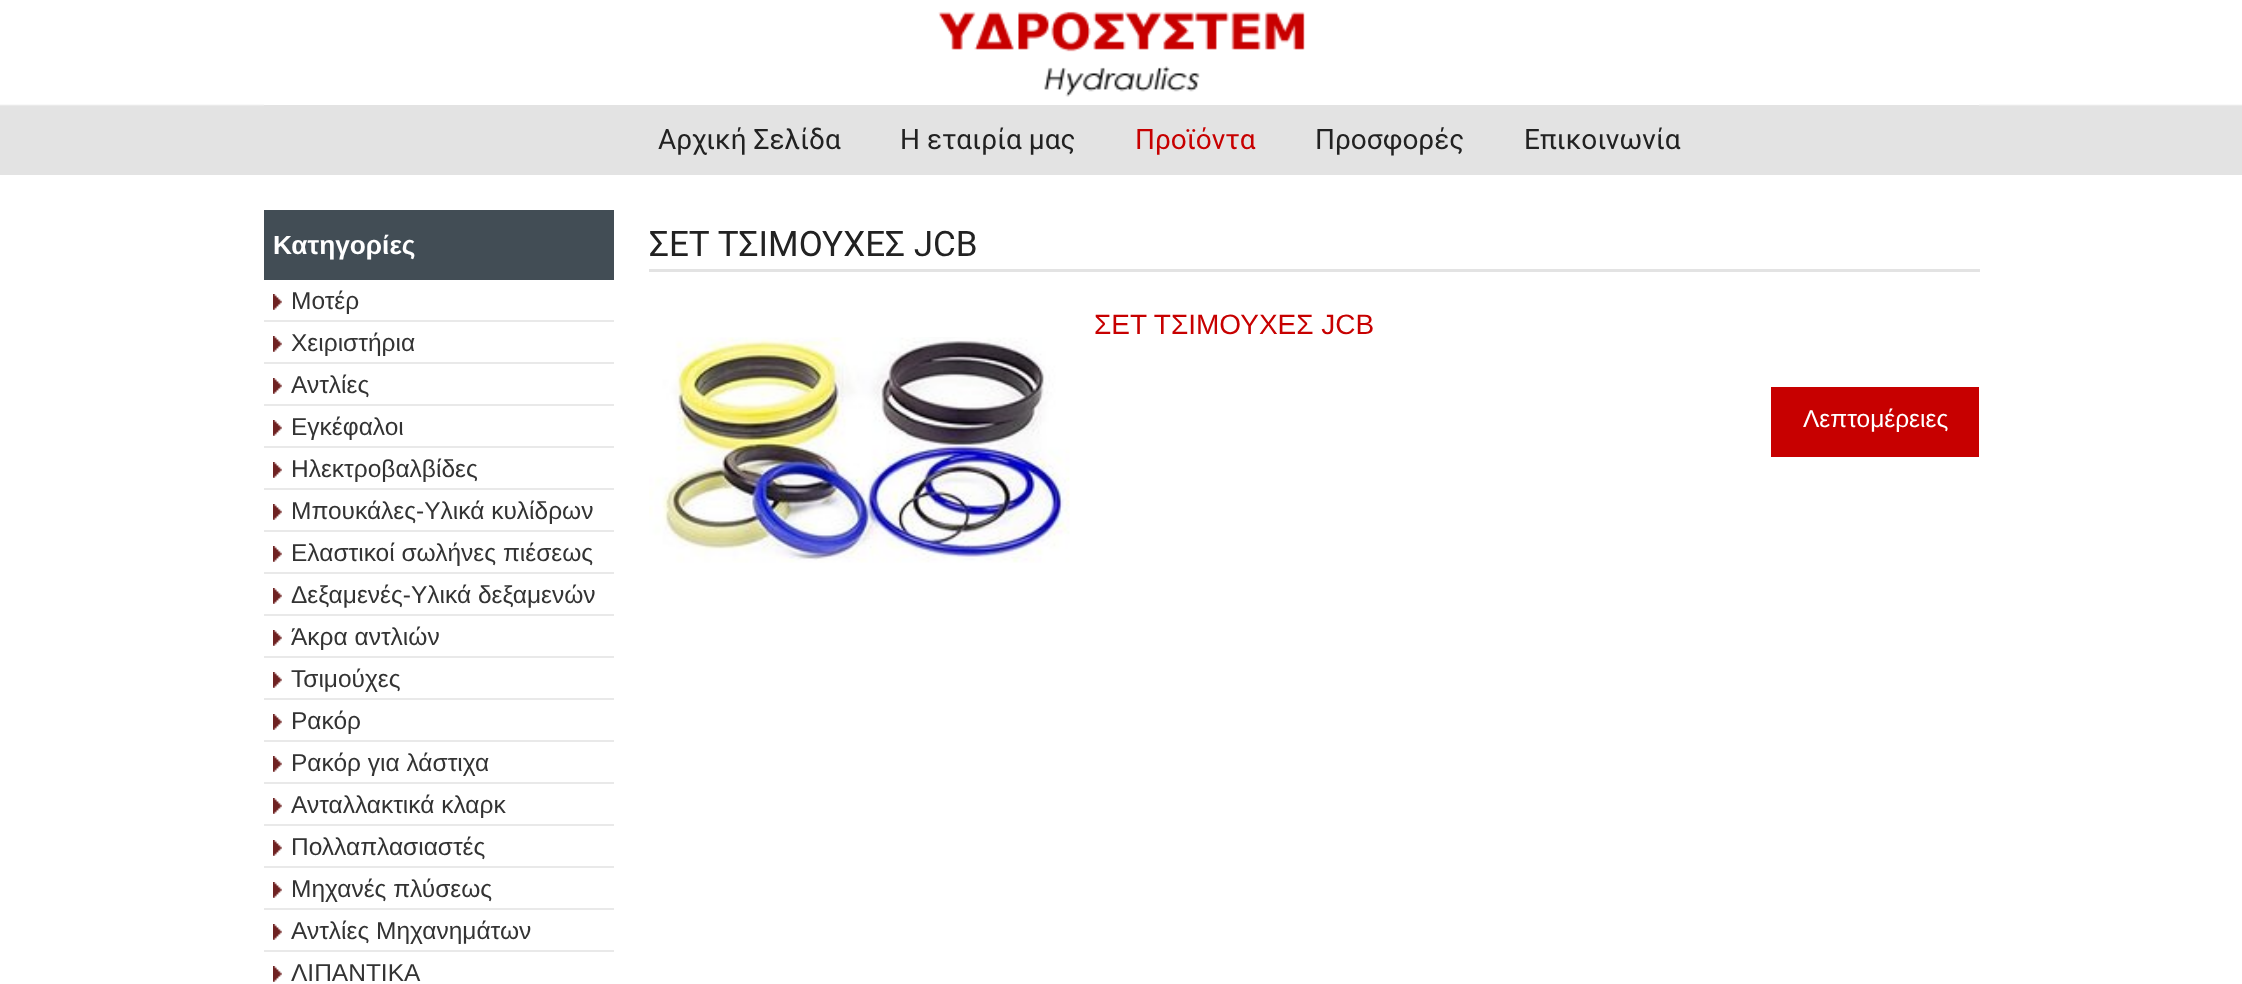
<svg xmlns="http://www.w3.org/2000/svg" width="2242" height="984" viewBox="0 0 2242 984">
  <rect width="100%" height="100%" fill="#ffffff"/>
  <image x="0" y="104" width="2242" height="71" href="img1.png"/>
  <rect x="264" y="104" width="1715" height="1" fill="#ffffff"/>
  <image x="938" y="11" width="367" height="86" href="img2.png"/>
  <rect x="264" y="105" width="1715" height="1" fill="#e3e3e3"/>
  <text x="658" y="149" font-family="Roboto" font-size="28" fill="#222222">Αρχική Σελίδα</text>
  <text x="900" y="149" font-family="Roboto" font-size="28" fill="#222222">Η εταιρία μας</text>
  <text x="1135" y="149" font-family="Roboto" font-size="28" fill="#c70000">Προϊόντα</text>
  <text x="1315" y="149" font-family="Roboto" font-size="28" fill="#222222">Προσφορές</text>
  <text x="1524" y="149" font-family="Roboto" font-size="28" fill="#222222">Επικοινωνία</text>
  <rect x="264" y="210" width="350" height="70" fill="#424d55"/>
  <text x="273" y="254" font-family="Liberation Sans" font-size="26.25" font-weight="bold" fill="#ffffff">Κατηγορίες</text>
  <rect x="264" y="320" width="350" height="2" fill="#e9e9e9"/>
  <image x="273" y="294" width="9" height="16" href="img3.png"/>
  <text x="291" y="309" font-family="Liberation Sans" font-size="24.5" fill="#333333">Μοτέρ</text>
  <rect x="264" y="362" width="350" height="2" fill="#e9e9e9"/>
  <image x="273" y="336" width="9" height="16" href="img3.png"/>
  <text x="291" y="351" font-family="Liberation Sans" font-size="24.5" fill="#333333">Χειριστήρια</text>
  <rect x="264" y="404" width="350" height="2" fill="#e9e9e9"/>
  <image x="273" y="378" width="9" height="16" href="img3.png"/>
  <text x="291" y="393" font-family="Liberation Sans" font-size="24.5" fill="#333333">Αντλίες</text>
  <rect x="264" y="446" width="350" height="2" fill="#e9e9e9"/>
  <image x="273" y="420" width="9" height="16" href="img3.png"/>
  <text x="291" y="435" font-family="Liberation Sans" font-size="24.5" fill="#333333">Εγκέφαλοι</text>
  <rect x="264" y="488" width="350" height="2" fill="#e9e9e9"/>
  <image x="273" y="462" width="9" height="16" href="img3.png"/>
  <text x="291" y="477" font-family="Liberation Sans" font-size="24.5" fill="#333333">Ηλεκτροβαλβίδες</text>
  <rect x="264" y="530" width="350" height="2" fill="#e9e9e9"/>
  <image x="273" y="504" width="9" height="16" href="img3.png"/>
  <text x="291" y="519" font-family="Liberation Sans" font-size="24.5" fill="#333333">Μπουκάλες-Υλικά κυλίδρων</text>
  <rect x="264" y="572" width="350" height="2" fill="#e9e9e9"/>
  <image x="273" y="546" width="9" height="16" href="img3.png"/>
  <text x="291" y="561" font-family="Liberation Sans" font-size="24.5" fill="#333333">Ελαστικοί σωλήνες πιέσεως</text>
  <rect x="264" y="614" width="350" height="2" fill="#e9e9e9"/>
  <image x="273" y="588" width="9" height="16" href="img3.png"/>
  <text x="291" y="603" font-family="Liberation Sans" font-size="24.5" fill="#333333">Δεξαμενές-Υλικά δεξαμενών</text>
  <rect x="264" y="656" width="350" height="2" fill="#e9e9e9"/>
  <image x="273" y="630" width="9" height="16" href="img3.png"/>
  <text x="291" y="645" font-family="Liberation Sans" font-size="24.5" fill="#333333">Άκρα αντλιών</text>
  <rect x="264" y="698" width="350" height="2" fill="#e9e9e9"/>
  <image x="273" y="672" width="9" height="16" href="img3.png"/>
  <text x="291" y="687" font-family="Liberation Sans" font-size="24.5" fill="#333333">Τσιμούχες</text>
  <rect x="264" y="740" width="350" height="2" fill="#e9e9e9"/>
  <image x="273" y="714" width="9" height="16" href="img3.png"/>
  <text x="291" y="729" font-family="Liberation Sans" font-size="24.5" fill="#333333">Ρακόρ</text>
  <rect x="264" y="782" width="350" height="2" fill="#e9e9e9"/>
  <image x="273" y="756" width="9" height="16" href="img3.png"/>
  <text x="291" y="771" font-family="Liberation Sans" font-size="24.5" fill="#333333">Ρακόρ για λάστιχα</text>
  <rect x="264" y="824" width="350" height="2" fill="#e9e9e9"/>
  <image x="273" y="798" width="9" height="16" href="img3.png"/>
  <text x="291" y="813" font-family="Liberation Sans" font-size="24.5" fill="#333333">Ανταλλακτικά κλαρκ</text>
  <rect x="264" y="866" width="350" height="2" fill="#e9e9e9"/>
  <image x="273" y="840" width="9" height="16" href="img3.png"/>
  <text x="291" y="855" font-family="Liberation Sans" font-size="24.5" fill="#333333">Πολλαπλασιαστές</text>
  <rect x="264" y="908" width="350" height="2" fill="#e9e9e9"/>
  <image x="273" y="882" width="9" height="16" href="img3.png"/>
  <text x="291" y="897" font-family="Liberation Sans" font-size="24.5" fill="#333333">Μηχανές πλύσεως</text>
  <rect x="264" y="950" width="350" height="2" fill="#e9e9e9"/>
  <image x="273" y="924" width="9" height="16" href="img3.png"/>
  <text x="291" y="939" font-family="Liberation Sans" font-size="24.5" fill="#333333">Αντλίες Μηχανημάτων</text>
  <image x="273" y="966" width="9" height="16" href="img3.png"/>
  <text x="291" y="981" font-family="Liberation Sans" font-size="24.5" fill="#333333">ΛΙΠΑΝΤΙΚΑ</text>
  <rect x="649" y="269" width="1331" height="3" fill="#e3e3e3"/>
  <text x="649" y="256" font-family="Roboto" font-size="35" fill="#222222">ΣΕΤ ΤΣΙΜΟΥΧΕΣ JCB</text>
  <text x="1094" y="334" font-family="Liberation Sans" font-size="28" fill="#c70000">ΣΕΤ ΤΣΙΜΟΥΧΕΣ JCB</text>
  <image x="649" y="337" width="421" height="226" href="img4.png"/>
  <rect x="1771" y="387" width="208" height="70" fill="#c70000"/>
  <text x="1803" y="427" font-family="Liberation Sans" font-size="24.5" fill="#ffffff">Λεπτομέρειες</text>
</svg>
